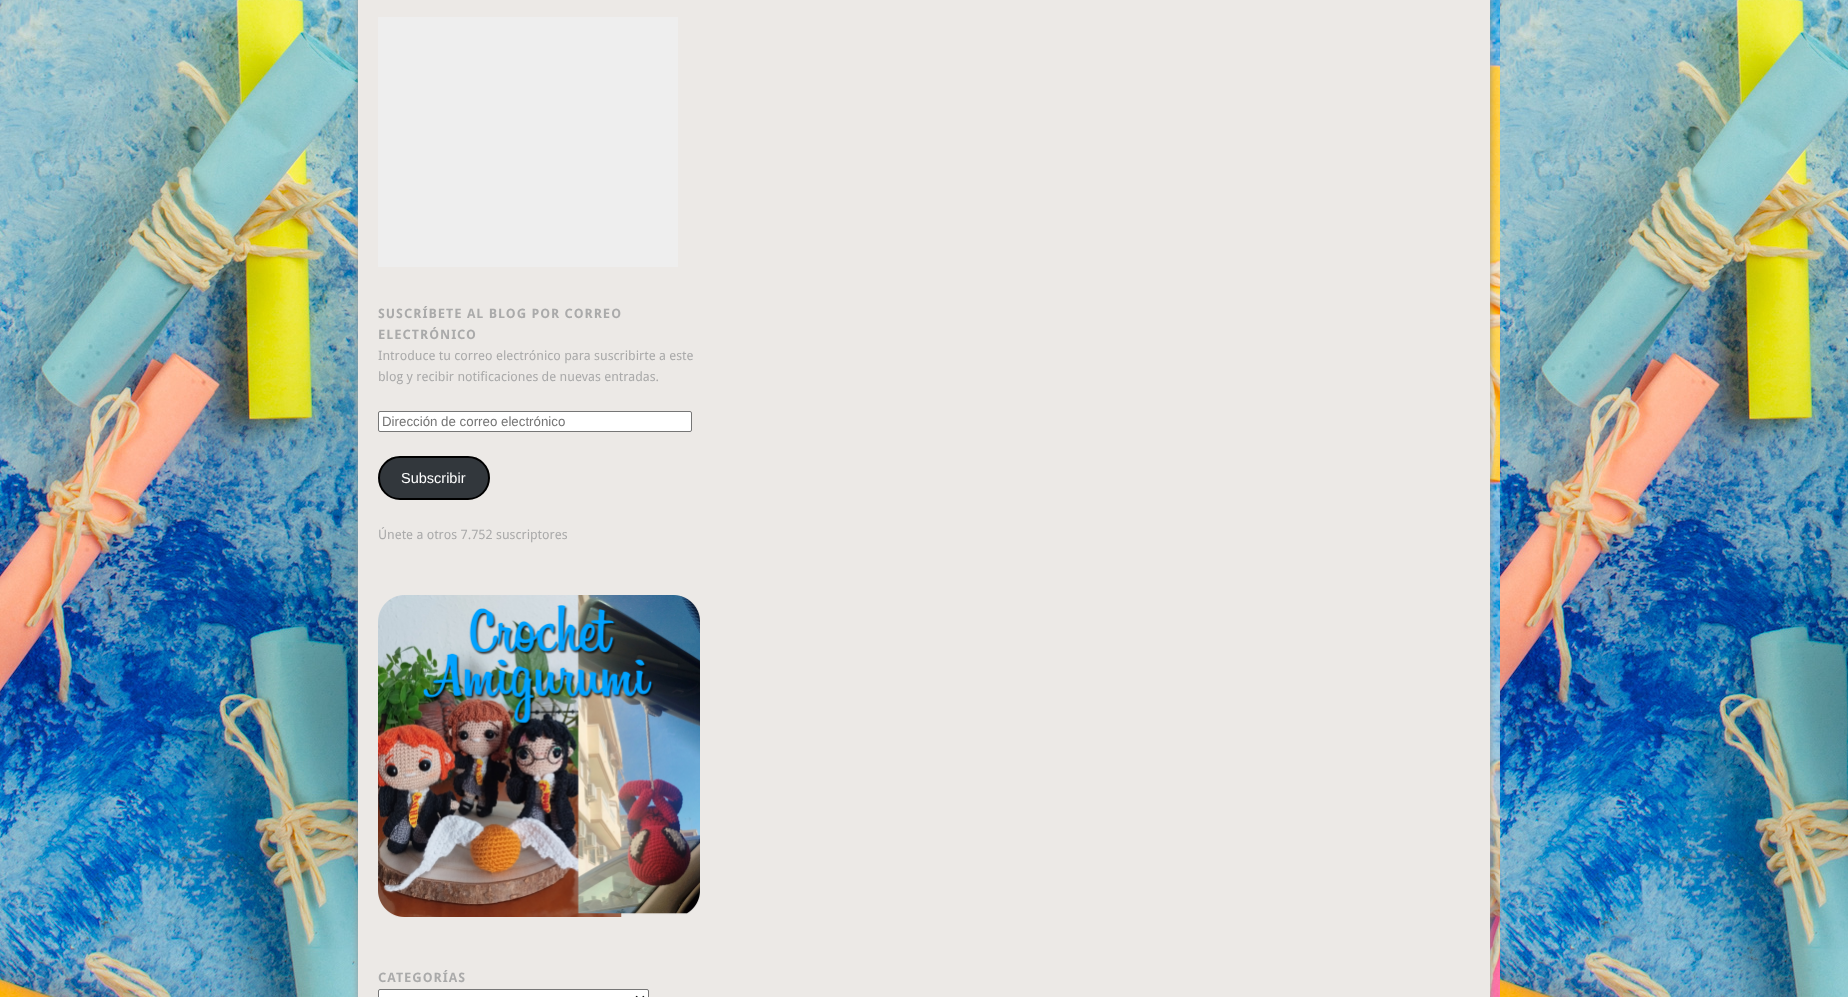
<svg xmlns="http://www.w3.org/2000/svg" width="1848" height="997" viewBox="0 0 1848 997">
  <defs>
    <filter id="blur1" x="-50%" y="-200%" width="200%" height="500%"><feGaussianBlur stdDeviation="3"/></filter>
  </defs>
  <rect width="100%" height="100%" fill="#ffffff"/>
  <image x="0" y="0" width="1848" height="997" href="img1.png"/>
  <rect x="358" y="-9" width="1132" height="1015" fill="#999999" filter="url(#blur1)"/>
  <rect x="358" y="0" width="1132" height="997" fill="#ece9e6"/>
  <rect x="378" y="17" width="300" height="250" fill="#eeeeee"/>
  <text x="378" y="318" font-family="Droid Sans" font-size="13" font-weight="bold" letter-spacing="1" fill="#aaaaaa">SUSCRÍBETE AL BLOG POR CORREO</text>
  <text x="378" y="339" font-family="Droid Sans" font-size="13" font-weight="bold" letter-spacing="1" fill="#aaaaaa">ELECTRÓNICO</text>
  <text x="378" y="360" font-family="Droid Sans" font-size="13" fill="#aaaaaa">Introduce tu correo electrónico para suscribirte a este</text>
  <text x="378" y="381" font-family="Droid Sans" font-size="13" fill="#aaaaaa">blog y recibir notificaciones de nuevas entradas.</text>
  <rect x="378.5" y="411.5" width="313" height="20" rx="1.5" fill="#ffffff" stroke="#767676"/>
  <text x="382" y="426" font-family="Liberation Sans" font-size="13.3" fill="#757575">Dirección de correo electrónico</text>
  <rect x="379" y="457" width="110" height="42" rx="21" fill="#32373c" stroke="#000000" stroke-width="2"/>
  <text x="401" y="483" font-family="Liberation Sans" font-size="14.5" fill="#ffffff">Subscribir</text>
  <text x="378" y="539" font-family="Droid Sans" font-size="13" fill="#aaaaaa">Únete a otros 7.752 suscriptores</text>
  <image x="378" y="595" width="322" height="322" href="img2.png"/>
  <text x="378" y="982" font-family="Droid Sans" font-size="13" font-weight="bold" letter-spacing="1" fill="#aaaaaa">CATEGORÍAS</text>
  <rect x="378.5" y="989.5" width="270" height="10" rx="1.5" fill="#ffffff" stroke="#767676"/>
  <path d="M636 996.5L640 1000.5L644 996.5" fill="none" stroke="#000000" stroke-width="2"/>
</svg>
